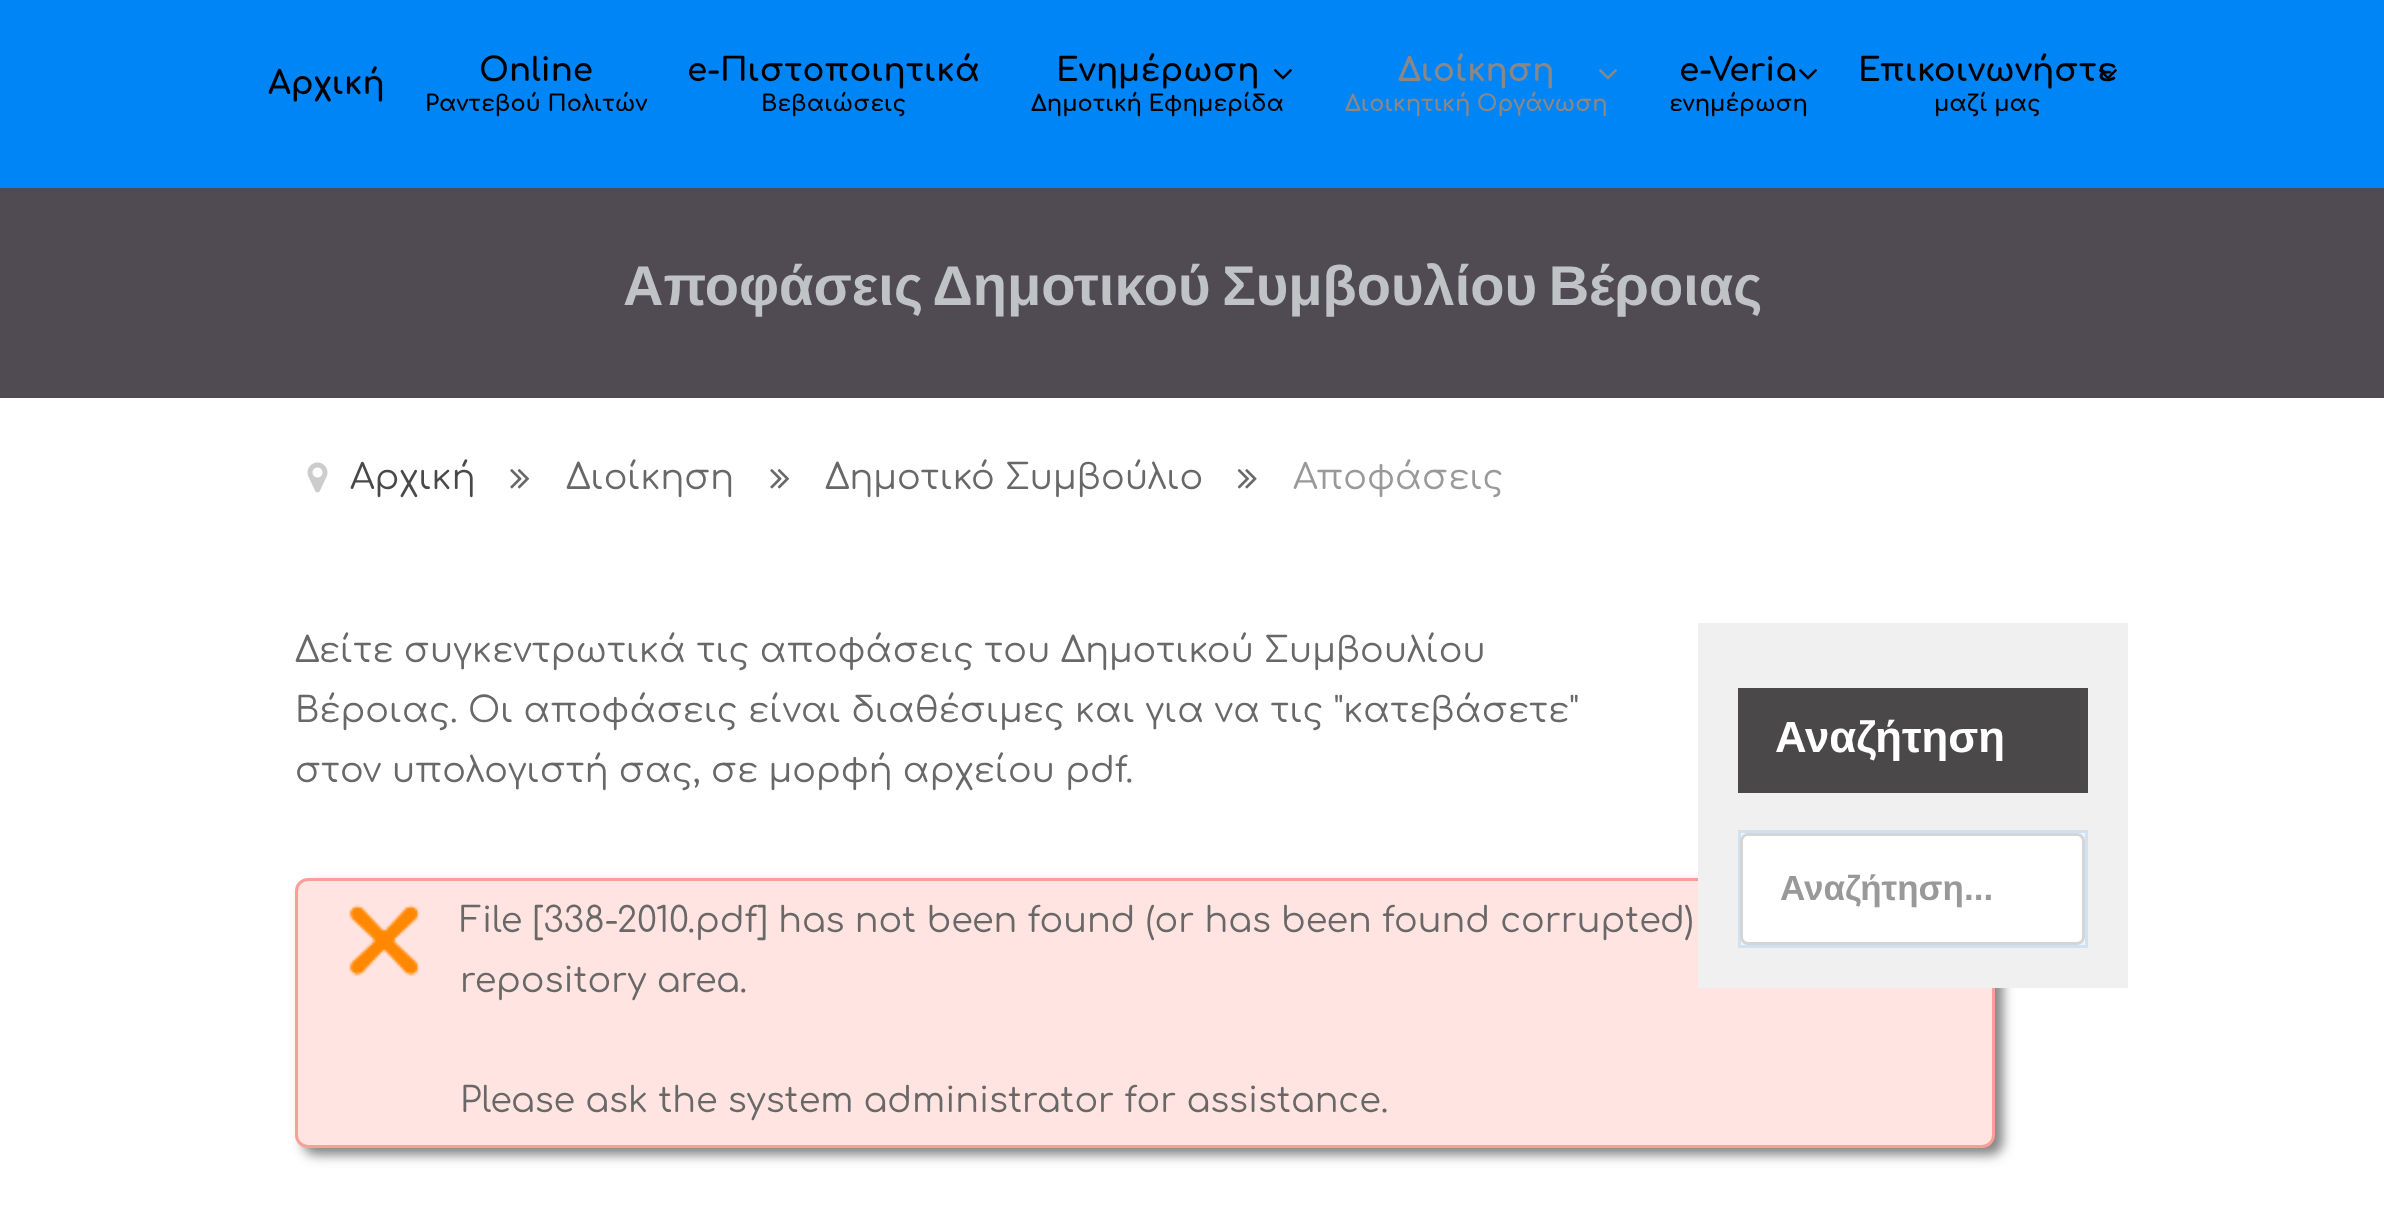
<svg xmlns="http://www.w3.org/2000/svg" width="2384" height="1206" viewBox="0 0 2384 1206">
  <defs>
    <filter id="blur1" x="-50%" y="-200%" width="200%" height="500%"><feGaussianBlur stdDeviation="6"/></filter>
  </defs>
  <rect width="100%" height="100%" fill="#ffffff"/>
  <rect x="0" y="0" width="2384" height="188" fill="#0085f6"/>
  <text x="268" y="94" font-family="Comfortaa" font-size="32.5" font-weight="bold" fill="#000000">Αρχική</text>
  <text x="479" y="81" font-family="Comfortaa" font-size="32.5" font-weight="bold" fill="#000000">Online</text>
  <text x="425" y="111" font-family="Comfortaa" font-size="22.5" font-weight="bold" fill="#000000">Ραντεβού Πολιτών</text>
  <text x="687" y="81" font-family="Comfortaa" font-size="32.5" font-weight="bold" fill="#000000">e-Πιστοποιητικά</text>
  <text x="761" y="111" font-family="Comfortaa" font-size="22.5" font-weight="bold" fill="#000000">Βεβαιώσεις</text>
  <text x="1056" y="81" font-family="Comfortaa" font-size="32.5" font-weight="bold" fill="#000000">Ενημέρωση</text>
  <image x="1273" y="69" width="19" height="11" href="img1.png"/>
  <text x="1031" y="111" font-family="Comfortaa" font-size="22.5" font-weight="bold" fill="#000000">Δημοτική Εφημερίδα</text>
  <text x="1398" y="81" font-family="Comfortaa" font-size="32.5" font-weight="bold" fill="#8a8787">Διοίκηση</text>
  <image x="1599" y="69" width="18" height="11" href="img2.png"/>
  <text x="1345" y="111" font-family="Comfortaa" font-size="22.5" font-weight="bold" fill="#8a8787">Διοικητική Οργάνωση</text>
  <text x="1679" y="81" font-family="Comfortaa" font-size="32.5" font-weight="bold" fill="#000000">e-Veria</text>
  <image x="1798" y="69" width="19" height="11" href="img1.png"/>
  <text x="1669" y="111" font-family="Comfortaa" font-size="22.5" font-weight="bold" fill="#000000">ενημέρωση</text>
  <text x="1858" y="81" font-family="Comfortaa" font-size="32.5" font-weight="bold" fill="#000000">Επικοινωνήστε</text>
  <image x="2098" y="69" width="19" height="10" href="img3.png"/>
  <text x="1934" y="111" font-family="Comfortaa" font-size="22.5" font-weight="bold" fill="#000000">μαζί μας</text>
  <rect x="0" y="188" width="2384" height="210" fill="#504b52"/>
  <text x="623" y="305" word-spacing="-4" font-family="Liberation Sans" font-size="56" font-weight="bold" fill="#bfc3c5">Αποφάσεις Δημοτικού Συμβουλίου Βέροιας</text>
  <image x="307" y="462" width="21" height="31" href="img4.png"/>
  <text x="350" y="489" font-family="Comfortaa" font-size="35" fill="#4a4848">Αρχική</text>
  <image x="510" y="469" width="20" height="20" href="img5.png"/>
  <text x="566" y="489" font-family="Comfortaa" font-size="35" fill="#686868">Διοίκηση</text>
  <image x="770" y="469" width="20" height="20" href="img5.png"/>
  <text x="825" y="489" font-family="Comfortaa" font-size="35" fill="#686868">Δημοτικό Συμβούλιο</text>
  <image x="1237" y="469" width="20" height="20" href="img6.png"/>
  <text x="1293" y="489" font-family="Comfortaa" font-size="35" fill="#999999">Αποφάσεις</text>
  <text x="295" y="662" font-family="Comfortaa" font-size="35" fill="#686868">Δείτε συγκεντρωτικά τις αποφάσεις του Δημοτικού Συμβουλίου</text>
  <text x="295" y="722" font-family="Comfortaa" font-size="35" fill="#686868">Βέροιας. Οι αποφάσεις είναι διαθέσιμες και για να τις "κατεβάσετε"</text>
  <text x="295" y="782" font-family="Comfortaa" font-size="35" fill="#686868">στον υπολογιστή σας, σε μορφή αρχείου pdf.</text>
  <rect x="303" y="885" width="1700" height="270" rx="13" fill="#646464" fill-opacity="0.8" filter="url(#blur1)"/>
  <rect x="296.5" y="879.5" width="1697" height="267" rx="11.5" fill="#ffe4e1" stroke="#f8a097" stroke-width="3"/>
  <image x="349" y="904" width="72" height="72" href="img7.png"/>
  <text x="460" y="932" font-family="Comfortaa" font-size="35" fill="#686868">File [338-2010.pdf] has not been found (or has been found corrupted)</text>
  <text x="460" y="992" font-family="Comfortaa" font-size="35" fill="#686868">repository area.</text>
  <text x="460" y="1112" font-family="Comfortaa" font-size="35" fill="#686868">Please ask the system administrator for assistance.</text>
  <rect x="1698" y="623" width="430" height="365" fill="#f0f0f0"/>
  <rect x="1738" y="688" width="350" height="105" fill="#4a4848"/>
  <text x="1775" y="752" font-family="Liberation Sans" font-size="43.75" font-weight="bold" fill="#ffffff">Αναζήτηση</text>
  <rect x="1739.5" y="831.5" width="347" height="115" fill="#f0f5ff" stroke="#cee2f2" stroke-width="3"/>
  <rect x="1741.5" y="834.5" width="342" height="109" rx="6.5" fill="#ffffff" stroke="#d5d5d5" stroke-width="3"/>
  <text x="1780" y="900" font-family="Liberation Sans" font-size="35" font-weight="bold" fill="#999999">Αναζήτηση...</text>
</svg>
